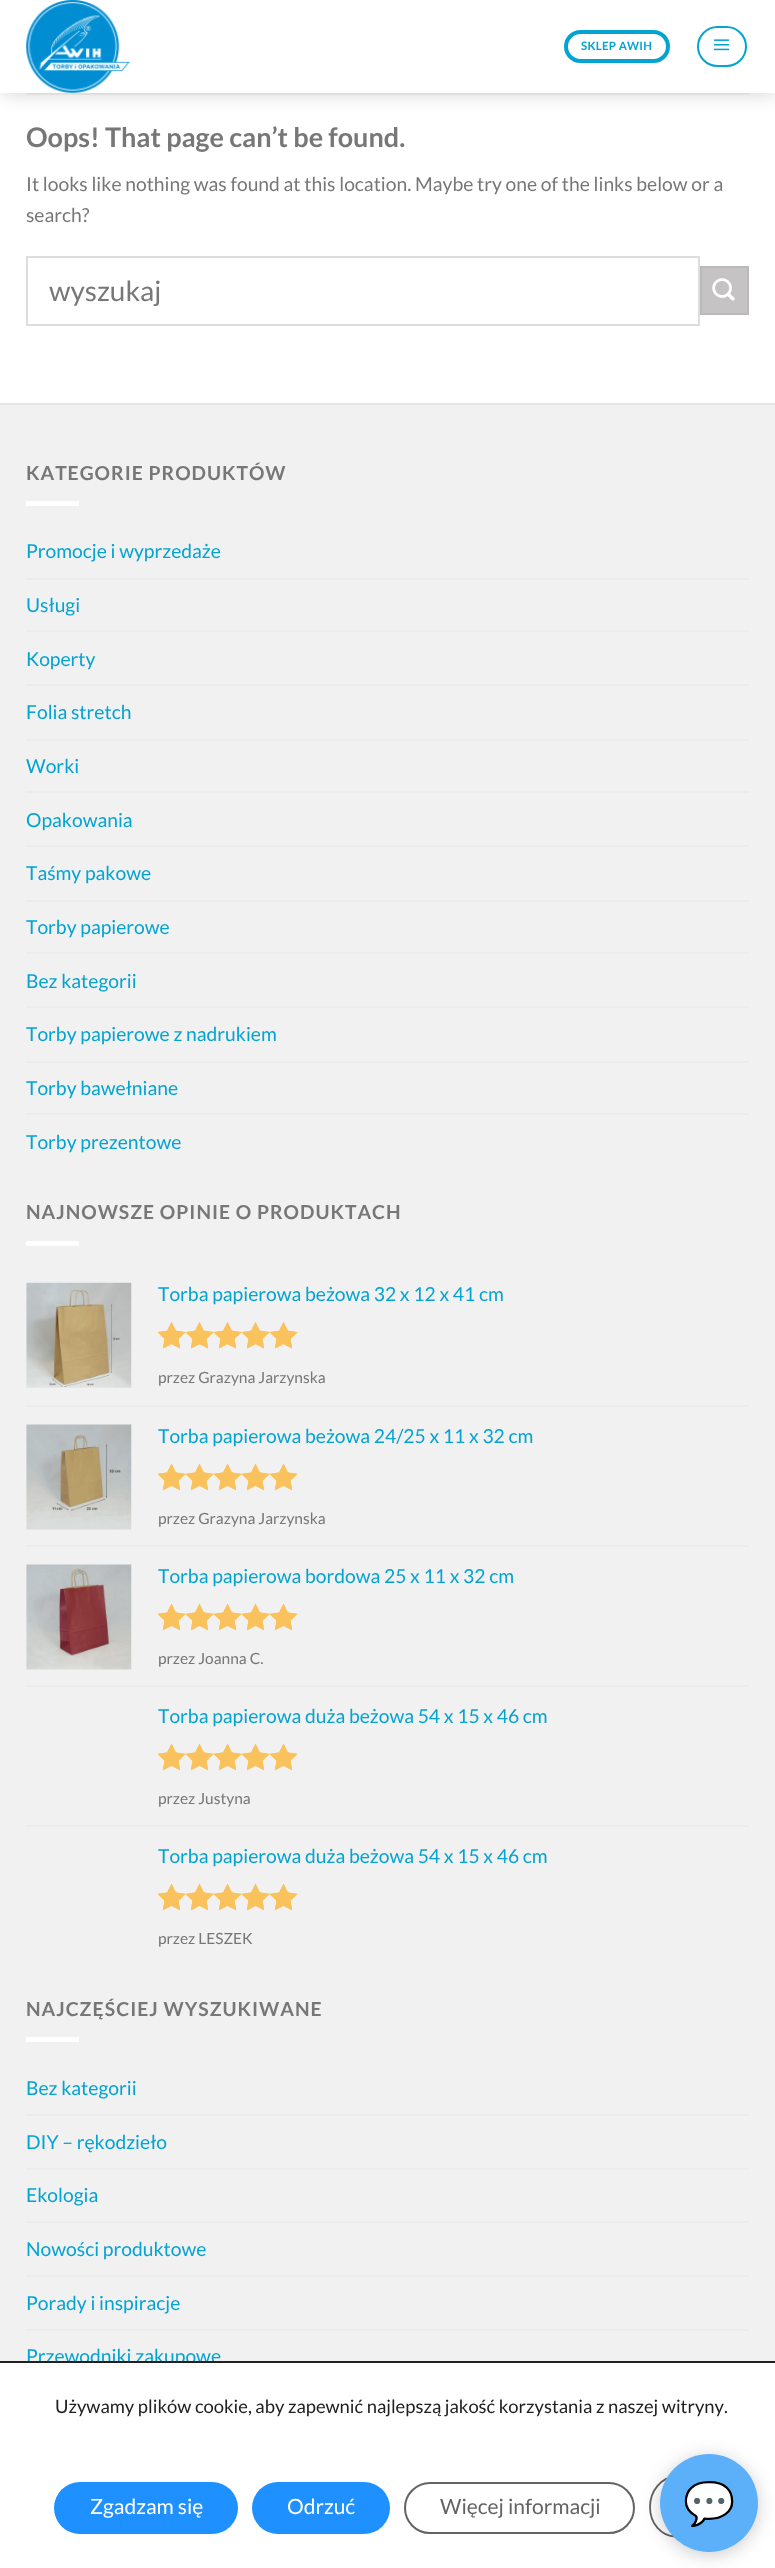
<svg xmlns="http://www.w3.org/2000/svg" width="775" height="2568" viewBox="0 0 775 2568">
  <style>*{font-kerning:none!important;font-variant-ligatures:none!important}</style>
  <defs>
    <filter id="blur1" x="-50%" y="-200%" width="200%" height="500%"><feGaussianBlur stdDeviation="9"/></filter>
  </defs>
  <rect width="100%" height="100%" fill="#ffffff"/>
  <rect x="2" y="2" width="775" height="93" fill="#000000" fill-opacity="0.15" filter="url(#blur1)"/>
  <rect x="0" y="0" width="775" height="93" fill="#ffffff"/>
  <image x="26" y="0" width="104" height="93" href="img1.png"/>
  <rect x="566" y="32" width="102" height="29" rx="14.5" fill="none" stroke="#03a3d2" stroke-width="4"/>
  <text x="581" y="50" font-family="Lato" font-size="11.5" font-weight="bold" letter-spacing="0.25" fill="#03a3d2">SKLEP AWIH</text>
  <rect x="698" y="27" width="48" height="39" rx="19.5" fill="none" stroke="#03a3d2" stroke-width="2"/>
  <image x="713" y="39" width="17" height="12" href="img2.png"/>
  <rect x="26" y="93" width="723" height="2" fill="#dfdfdf"/>
  <text x="26" y="147" font-family="Lato" font-size="27" font-weight="bold" fill="#777777">Oops! That page can’t be found.</text>
  <text x="26" y="191" font-family="Lato" font-size="19.3" fill="#777777">It looks like nothing was found at this location. Maybe try one of the links below or a</text>
  <text x="26" y="222" font-family="Lato" font-size="19.3" fill="#777777">search?</text>
  <rect x="27" y="257" width="672" height="68" fill="none" stroke="#dddddd" stroke-width="2"/>
  <text x="49" y="301" font-family="Lato" font-size="28" fill="#777777">wyszukaj</text>
  <rect x="701" y="267" width="47" height="47" fill="#c5c3c3" stroke="#bbb9b9" stroke-width="2"/>
  <image x="712" y="278" width="23" height="23" href="img3.png"/>
  <rect x="0" y="405" width="775" height="1956" fill="#f1f1f1"/>
  <rect x="0" y="403" width="775" height="2" fill="#e5e5e5"/>
  <text x="26" y="480" font-family="Lato" font-size="19.3" font-weight="bold" letter-spacing="1" fill="#777777">KATEGORIE PRODUKTÓW</text>
  <rect x="26" y="501" width="53" height="5" fill="#ffffff"/>
  <text x="26" y="558" font-family="Lato" font-size="19.3" fill="#03a3d2">Promocje i wyprzedaże</text>
  <rect x="26" y="578" width="723" height="2" fill="#ececec"/>
  <text x="26" y="612" font-family="Lato" font-size="19.3" fill="#03a3d2">Usługi</text>
  <rect x="26" y="630" width="723" height="2" fill="#ececec"/>
  <text x="26" y="666" font-family="Lato" font-size="19.3" fill="#03a3d2">Koperty</text>
  <rect x="26" y="684" width="723" height="2" fill="#ececec"/>
  <text x="26" y="719" font-family="Lato" font-size="19.3" fill="#03a3d2">Folia stretch</text>
  <rect x="26" y="739" width="723" height="2" fill="#ececec"/>
  <text x="26" y="773" font-family="Lato" font-size="19.3" fill="#03a3d2">Worki</text>
  <rect x="26" y="791" width="723" height="2" fill="#ececec"/>
  <text x="26" y="827" font-family="Lato" font-size="19.3" fill="#03a3d2">Opakowania</text>
  <rect x="26" y="845" width="723" height="2" fill="#ececec"/>
  <text x="26" y="880" font-family="Lato" font-size="19.3" fill="#03a3d2">Taśmy pakowe</text>
  <rect x="26" y="900" width="723" height="2" fill="#ececec"/>
  <text x="26" y="934" font-family="Lato" font-size="19.3" fill="#03a3d2">Torby papierowe</text>
  <rect x="26" y="952" width="723" height="2" fill="#ececec"/>
  <text x="26" y="988" font-family="Lato" font-size="19.3" fill="#03a3d2">Bez kategorii</text>
  <rect x="26" y="1006" width="723" height="2" fill="#ececec"/>
  <text x="26" y="1041" font-family="Lato" font-size="19.3" fill="#03a3d2">Torby papierowe z nadrukiem</text>
  <rect x="26" y="1061" width="723" height="2" fill="#ececec"/>
  <text x="26" y="1095" font-family="Lato" font-size="19.3" fill="#03a3d2">Torby bawełniane</text>
  <rect x="26" y="1113" width="723" height="2" fill="#ececec"/>
  <text x="26" y="1149" font-family="Lato" font-size="19.3" fill="#03a3d2">Torby prezentowe</text>
  <text x="26" y="1219" font-family="Lato" font-size="19.3" font-weight="bold" letter-spacing="1" fill="#777777">NAJNOWSZE OPINIE O PRODUKTACH</text>
  <rect x="26" y="1241" width="53" height="5" fill="#ffffff"/>
  <image x="26" y="1282" width="106" height="106" href="img4.png"/>
  <text x="158" y="1301" font-family="Lato" font-size="19.3" fill="#03a3d2">Torba papierowa beżowa 32 x 12 x 41 cm</text>
  <image x="158" y="1322" width="140" height="27" href="img5.png"/>
  <image x="158" y="1322" width="140" height="27" href="img6.png"/>
  <text x="158" y="1383" font-family="Lato" font-size="15.5" fill="#777777">przez Grazyna Jarzynska</text>
  <rect x="26" y="1405" width="723" height="2" fill="#ececec"/>
  <image x="26" y="1424" width="106" height="106" href="img7.png"/>
  <text x="158" y="1443" font-family="Lato" font-size="19.3" fill="#03a3d2">Torba papierowa beżowa 24/25 x 11 x 32 cm</text>
  <image x="158" y="1463" width="140" height="28" href="img8.png"/>
  <image x="158" y="1463" width="140" height="28" href="img9.png"/>
  <text x="158" y="1524" font-family="Lato" font-size="15.5" fill="#777777">przez Grazyna Jarzynska</text>
  <rect x="26" y="1545" width="723" height="2" fill="#ececec"/>
  <image x="26" y="1564" width="106" height="106" href="img10.png"/>
  <text x="158" y="1583" font-family="Lato" font-size="19.3" fill="#03a3d2">Torba papierowa bordowa 25 x 11 x 32 cm</text>
  <image x="158" y="1603" width="140" height="28" href="img8.png"/>
  <image x="158" y="1603" width="140" height="28" href="img9.png"/>
  <text x="158" y="1664" font-family="Lato" font-size="15.5" fill="#777777">przez Joanna C.</text>
  <rect x="26" y="1685" width="723" height="2" fill="#ececec"/>
  <text x="158" y="1723" font-family="Lato" font-size="19.3" fill="#03a3d2">Torba papierowa duża beżowa 54 x 15 x 46 cm</text>
  <image x="158" y="1743" width="140" height="28" href="img8.png"/>
  <image x="158" y="1743" width="140" height="28" href="img9.png"/>
  <text x="158" y="1804" font-family="Lato" font-size="15.5" fill="#777777">przez Justyna</text>
  <rect x="26" y="1825" width="723" height="2" fill="#ececec"/>
  <text x="158" y="1863" font-family="Lato" font-size="19.3" fill="#03a3d2">Torba papierowa duża beżowa 54 x 15 x 46 cm</text>
  <image x="158" y="1883" width="140" height="28" href="img8.png"/>
  <image x="158" y="1883" width="140" height="28" href="img9.png"/>
  <text x="158" y="1944" font-family="Lato" font-size="15.5" fill="#777777">przez LESZEK</text>
  <text x="26" y="2016" font-family="Lato" font-size="19.3" font-weight="bold" letter-spacing="1" fill="#777777">NAJCZĘŚCIEJ WYSZUKIWANE</text>
  <rect x="26" y="2037" width="53" height="5" fill="#ffffff"/>
  <text x="26" y="2095" font-family="Lato" font-size="19.3" fill="#03a3d2">Bez kategorii</text>
  <rect x="26" y="2114" width="723" height="2" fill="#ececec"/>
  <text x="26" y="2149" font-family="Lato" font-size="19.3" fill="#03a3d2">DIY – rękodzieło</text>
  <rect x="26" y="2168" width="723" height="2" fill="#ececec"/>
  <text x="26" y="2202" font-family="Lato" font-size="19.3" fill="#03a3d2">Ekologia</text>
  <rect x="26" y="2221" width="723" height="2" fill="#ececec"/>
  <text x="26" y="2256" font-family="Lato" font-size="19.3" fill="#03a3d2">Nowości produktowe</text>
  <rect x="26" y="2275" width="723" height="2" fill="#ececec"/>
  <text x="26" y="2310" font-family="Lato" font-size="19.3" fill="#03a3d2">Porady i inspiracje</text>
  <rect x="26" y="2329" width="723" height="2" fill="#ececec"/>
  <text x="26" y="2363" font-family="Lato" font-size="19.3" fill="#03a3d2">Przewodniki zakupowe</text>
  <rect x="59" y="2363" width="159" height="4" fill="#ffffff"/>
  <rect x="0" y="2361" width="775" height="2" fill="#202020"/>
  <text x="55" y="2413" font-family="Lato" font-size="18.4" fill="#202020">Używamy plików cookie, aby zapewnić najlepszą jakość korzystania z naszej witryny.</text>
  <rect x="54" y="2482" width="184" height="52" rx="26" fill="#1e90ff"/>
  <text x="90" y="2514" font-family="Lato" font-size="21" fill="#ffffff">Zgadzam się</text>
  <rect x="252" y="2482" width="138" height="52" rx="26" fill="#1e90ff"/>
  <text x="287" y="2514" font-family="Lato" font-size="21" fill="#ffffff">Odrzuć</text>
  <rect x="405" y="2483" width="229" height="50" rx="25" fill="none" stroke="#636363" stroke-width="2"/>
  <text x="440" y="2514" font-family="Lato" font-size="21" fill="#636363">Więcej informacji</text>
  <path d="M675.5 2477C689.5 2477 701 2490.5 701 2507C701 2523.5 689.5 2536.5 675.5 2536.5C661.5 2536.5 650 2523.5 650 2507C650 2490.5 661.5 2477 675.5 2477Z" fill="none" stroke="#626262" stroke-width="1.8"/>
  <rect x="660" y="2457" width="98" height="98" rx="49" fill="#000000" fill-opacity="0.2" filter="url(#blur1)"/>
  <circle cx="709" cy="2503" r="49" fill="#5cb0f9"/>
  <text x="683" y="2518" font-family="Noto Color Emoji" font-size="42" font-weight="bold" fill="#ffffff">💬</text>
</svg>
